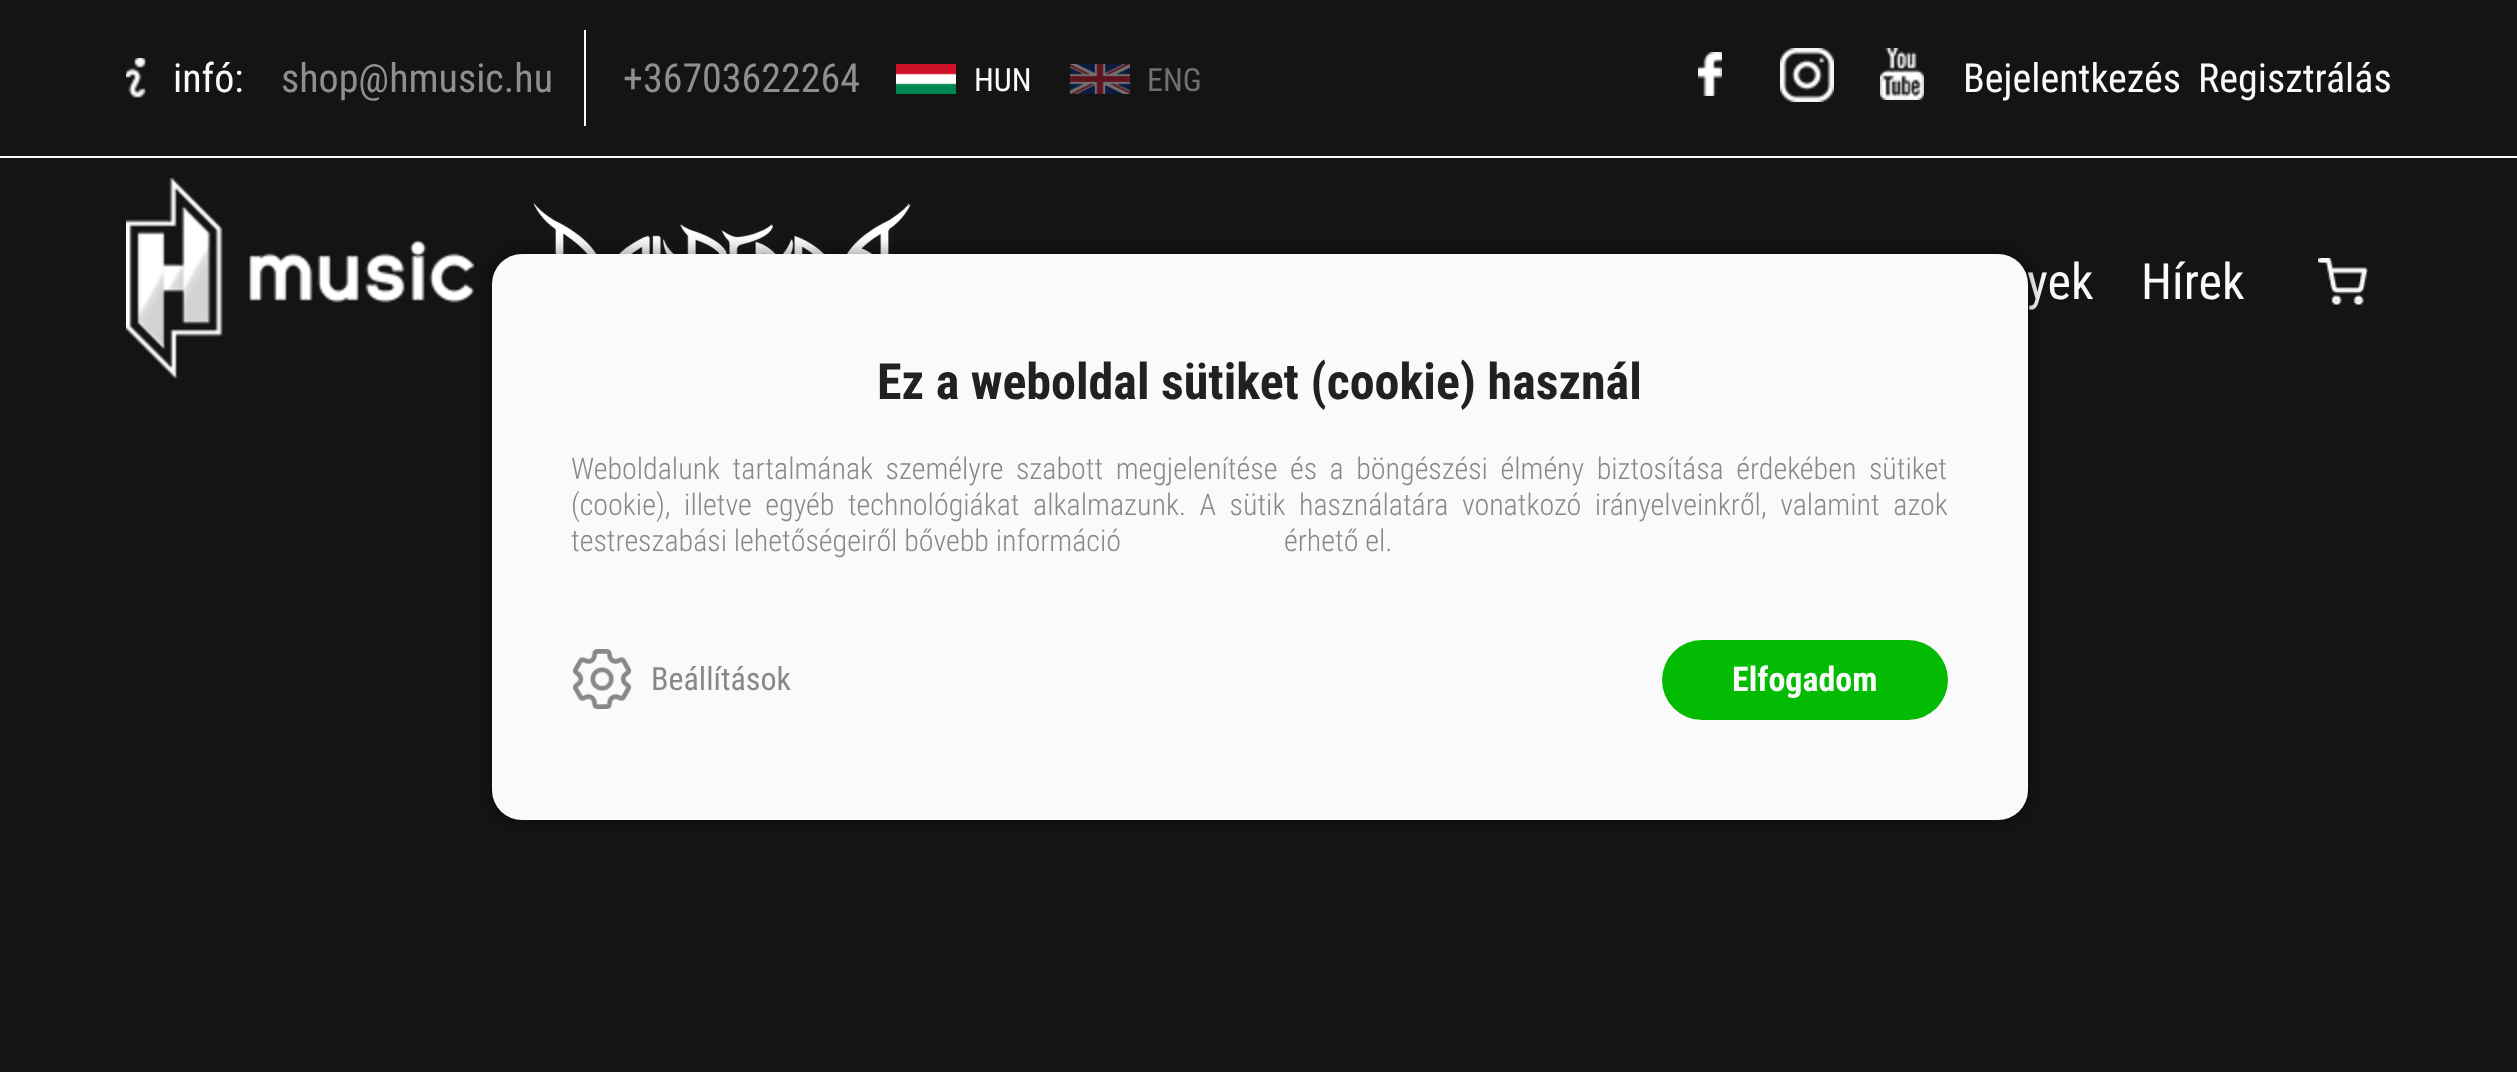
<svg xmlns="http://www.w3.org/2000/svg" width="2517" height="1072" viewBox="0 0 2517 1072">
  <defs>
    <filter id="blur1" x="-50%" y="-200%" width="200%" height="500%"><feGaussianBlur stdDeviation="10"/></filter>
  </defs>
  <rect width="100%" height="100%" fill="#141414"/>
  <rect x="0" y="156" width="2517" height="2" fill="#fafafa"/>
  <image x="126" y="58" width="20" height="40" href="img1.png"/>
  <text x="173" y="92" font-family="Roboto Condensed" font-size="40" fill="#fafafa">infó:</text>
  <rect x="584" y="30" width="2" height="96" fill="#fafafa"/>
  <text x="281" y="92" font-family="Roboto Condensed" font-size="40" fill="#8f8f8f">shop@hmusic.hu</text>
  <text x="623" y="92" font-family="Roboto Condensed" font-size="40" fill="#8f8f8f">+36703622264</text>
  <image x="896" y="64" width="60" height="30" href="img2.png"/>
  <text x="974" y="91" font-family="Roboto Condensed" font-size="32" fill="#fafafa">HUN</text>
  <image x="1070" y="64" width="60" height="30" href="img3.png"/>
  <text x="1147" y="91" font-family="Roboto Condensed" font-size="32" fill="#707070">ENG</text>
  <image x="1698" y="52" width="24" height="44" href="img4.png"/>
  <image x="1780" y="48" width="54" height="54" href="img5.png"/>
  <image x="1880" y="48" width="44" height="52" href="img6.png"/>
  <text x="1963" y="92" font-family="Roboto Condensed" font-size="40" fill="#fafafa">Bejelentkezés</text>
  <text x="2198" y="92" font-family="Roboto Condensed" font-size="40" fill="#fafafa">Regisztrálás</text>
  <image x="126" y="178" width="348" height="200" href="img7.png"/>
  <image x="532" y="202" width="380" height="52" href="img8.png"/>
  <text x="2027" y="299" font-family="Roboto Condensed" font-size="50" fill="#fafafa">yek</text>
  <text x="2141" y="299" font-family="Roboto Condensed" font-size="50" fill="#fafafa">Hírek</text>
  <image x="2318" y="258" width="50" height="47" href="img9.png"/>
  <rect x="492" y="254" width="1536" height="566" rx="30" fill="#000000" fill-opacity="0.5" filter="url(#blur1)"/>
  <rect x="492" y="254" width="1536" height="566" rx="30" fill="#fafafa"/>
  <text x="877" y="399" font-family="Roboto Condensed" font-size="50" font-weight="bold" fill="#212121">Ez a weboldal sütiket (cookie) használ</text>
  <text x="571" y="479" word-spacing="5.75" font-family="Roboto Condensed" font-size="30" font-weight="300" fill="#888888">Weboldalunk tartalmának személyre szabott megjelenítése és a böngészési élmény biztosítása érdekében sütiket</text>
  <text x="571" y="515" word-spacing="6.75" font-family="Roboto Condensed" font-size="30" font-weight="300" fill="#888888">(cookie), illetve egyéb technológiákat alkalmazunk. A sütik használatára vonatkozó irányelveinkről, valamint azok</text>
  <text x="571" y="551" font-family="Roboto Condensed" font-size="30" font-weight="300" fill="#888888">testreszabási lehetőségeiről bővebb információ</text>
  <text x="1284" y="551" font-family="Roboto Condensed" font-size="30" font-weight="300" fill="#888888">érhető el.</text>
  <image x="573" y="649" width="59" height="60" href="img10.png"/>
  <text x="651" y="690" font-family="Roboto Condensed" font-size="32" fill="#888888">Beállítások</text>
  <rect x="1662" y="640" width="286" height="80" rx="40" fill="#02bb02"/>
  <text x="1732" y="691" font-family="Roboto Condensed" font-size="34" font-weight="bold" fill="#fafafa">Elfogadom</text>
</svg>
